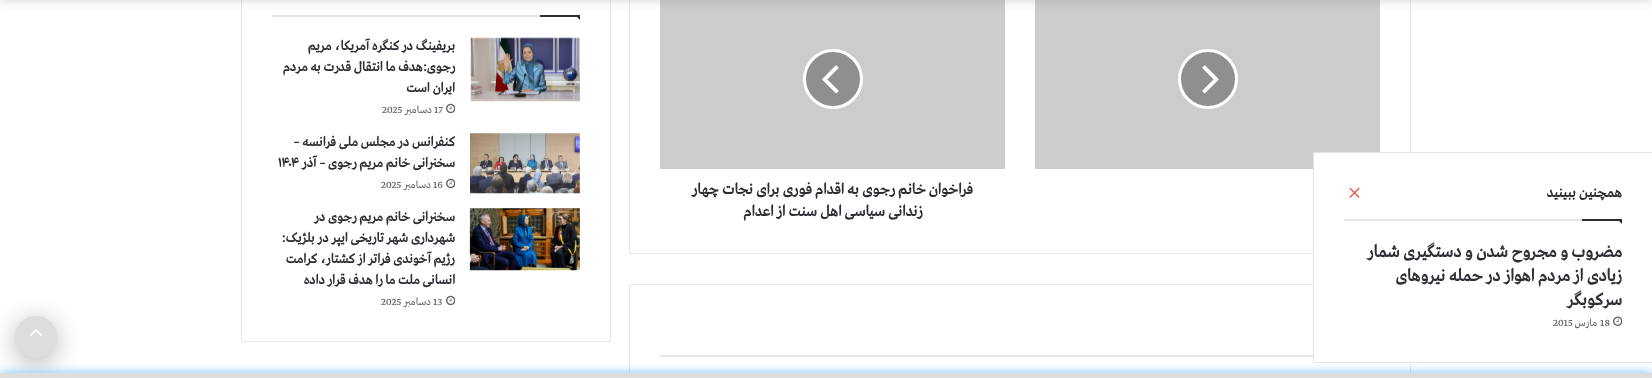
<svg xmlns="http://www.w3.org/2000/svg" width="1652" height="378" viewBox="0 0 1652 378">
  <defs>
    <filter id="blur1" x="-50%" y="-200%" width="200%" height="500%"><feGaussianBlur stdDeviation="4"/></filter>
    <filter id="blur2" x="-50%" y="-200%" width="200%" height="500%"><feGaussianBlur stdDeviation="12.5"/></filter>
    <filter id="blur3" x="-50%" y="-200%" width="200%" height="500%"><feGaussianBlur stdDeviation="5"/></filter>
  </defs>
  <rect width="100%" height="100%" fill="#ffffff"/>
  <rect x="629.5" y="-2.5" width="781" height="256" rx="1.5" fill="none" stroke="#e6e6e6"/>
  <rect x="1035" y="0" width="345" height="169" fill="#cccccc"/>
  <rect x="660" y="0" width="345" height="169" fill="#cccccc"/>
  <rect x="241.5" y="-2.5" width="369" height="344" rx="1.5" fill="none" stroke="#e6e6e6"/>
  <rect x="0" y="-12" width="1652" height="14" fill="#636363" fill-opacity="0.2" filter="url(#blur1)"/>
  <rect x="629.5" y="284.5" width="781" height="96" rx="1.5" fill="none" stroke="#e6e6e6"/>
  <path d="M1315 152H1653V363H1315C1314 363 1313 362 1313 361V154C1313 153 1314 152 1315 152Z" fill="#ffffff"/>
  <path d="M1315 152.5H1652.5V362.5H1315C1314 362.5 1313.5 362 1313.5 361V154C1313.5 153 1314 152.5 1315 152.5Z" fill="none" stroke="#000000" stroke-opacity="0.1"/>
  <rect x="1344" y="219" width="238" height="2" fill="#e6e6e6"/>
  <text x="1622" y="197" font-family="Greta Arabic" font-size="15" font-weight="bold" direction="rtl" fill="#2c2f34">همچنین ببینید</text>
  <image x="1349" y="187" width="11" height="11" href="img1.png"/>
  <path d="M1617 219H1622V224Z" fill="#2c2f34"/>
  <rect x="1582" y="219" width="40" height="2" fill="#2c2f34"/>
  <text x="1622" y="257" font-family="Greta Arabic" font-size="18" font-weight="bold" direction="rtl" fill="#2c2f34">مضروب و مجروح شدن و دستگیری شمار</text>
  <text x="1622" y="281" font-family="Greta Arabic" font-size="18" font-weight="bold" direction="rtl" fill="#2c2f34">زیادی از مردم اهواز در حمله نیروهای</text>
  <text x="1622" y="305" font-family="Greta Arabic" font-size="18" font-weight="bold" direction="rtl" fill="#2c2f34">سركوبگر</text>
  <image x="1613" y="316" width="9" height="10" href="img2.png"/>
  <text x="1600" y="326" font-family="Greta Arabic" font-size="11" fill="#666666">18</text>
  <text x="1597" y="326" font-family="Greta Arabic" font-size="11" direction="rtl" fill="#666666">مارس</text>
  <text x="1553" y="326" font-family="Greta Arabic" font-size="11" fill="#666666">2015</text>
  <circle cx="1208" cy="79" r="28.5" fill="#8f8f8f" stroke="#ffffff" stroke-width="3"/>
  <image x="1202" y="65" width="17" height="29" href="img3.png"/>
  <circle cx="833" cy="79" r="28.5" fill="#8f8f8f" stroke="#ffffff" stroke-width="3"/>
  <image x="822" y="65" width="17" height="29" href="img4.png"/>
  <text x="973" y="194" font-family="Greta Arabic" font-size="16" font-weight="bold" direction="rtl" fill="#2c2f34">فراخوان خانم رجوی به اقدام فوری برای نجات چهار</text>
  <text x="922" y="216" font-family="Greta Arabic" font-size="16" font-weight="bold" direction="rtl" fill="#2c2f34">زندانی سیاسی اهل سنت از اعدام</text>
  <rect x="660" y="355" width="653" height="2" fill="#e6e6e6"/>
  <rect x="272" y="15" width="268" height="2" fill="#e6e6e6"/>
  <path d="M575 15H580V20Z" fill="#2c2f34"/>
  <rect x="540" y="15" width="40" height="2" fill="#2c2f34"/>
  <image x="470" y="37" width="110" height="65" href="img5.png"/>
  <text x="455" y="50" font-family="Greta Arabic" font-size="14" font-weight="bold" direction="rtl" fill="#2c2f34">بریفینگ در کنگره آمریکا، مریم</text>
  <text x="455" y="71" font-family="Greta Arabic" font-size="14" font-weight="bold" direction="rtl" fill="#2c2f34">رجوی:هدف ما انتقال قدرت به مردم</text>
  <text x="455" y="92" font-family="Greta Arabic" font-size="14" font-weight="bold" direction="rtl" fill="#2c2f34">ایران است</text>
  <image x="446" y="103" width="9" height="11" href="img6.png"/>
  <text x="434" y="113" font-family="Greta Arabic" font-size="11" fill="#666666">17</text>
  <text x="432" y="113" font-family="Greta Arabic" font-size="11" direction="rtl" fill="#666666">دسامبر</text>
  <text x="382" y="113" font-family="Greta Arabic" font-size="11" fill="#666666">2025</text>
  <image x="470" y="133" width="110" height="61" href="img7.png"/>
  <text x="455" y="146" font-family="Greta Arabic" font-size="14" font-weight="bold" direction="rtl" fill="#2c2f34">کنفرانس در مجلس ملی فرانسه –</text>
  <text x="455" y="167" font-family="Greta Arabic" font-size="14" font-weight="bold" direction="rtl" fill="#2c2f34">سخنرانی خانم مریم رجوی – آذر</text>
  <text x="278" y="167" font-family="Greta Arabic" font-size="14" font-weight="bold" fill="#2c2f34">۱۴۰۴</text>
  <image x="446" y="178" width="9" height="11" href="img6.png"/>
  <text x="433" y="188" font-family="Greta Arabic" font-size="11" fill="#666666">16</text>
  <text x="431" y="188" font-family="Greta Arabic" font-size="11" direction="rtl" fill="#666666">دسامبر</text>
  <text x="381" y="188" font-family="Greta Arabic" font-size="11" fill="#666666">2025</text>
  <image x="469" y="208" width="111" height="63" href="img8.png"/>
  <text x="455" y="221" font-family="Greta Arabic" font-size="14" font-weight="bold" direction="rtl" fill="#2c2f34">سخنرانی خانم مریم رجوی در</text>
  <text x="455" y="242" font-family="Greta Arabic" font-size="14" font-weight="bold" direction="rtl" fill="#2c2f34">شهرداری شهر تاریخی ایپر در بلژیک:</text>
  <text x="455" y="263" font-family="Greta Arabic" font-size="14" font-weight="bold" direction="rtl" fill="#2c2f34">رژیم آخوندی فراتر از کشتار، کرامت</text>
  <text x="455" y="284" font-family="Greta Arabic" font-size="14" font-weight="bold" direction="rtl" fill="#2c2f34">انسانی ملت ما را هدف قرار داده</text>
  <image x="446" y="295" width="9" height="11" href="img6.png"/>
  <text x="433" y="305" font-family="Greta Arabic" font-size="11" fill="#666666">13</text>
  <text x="431" y="305" font-family="Greta Arabic" font-size="11" direction="rtl" fill="#666666">دسامبر</text>
  <text x="381" y="305" font-family="Greta Arabic" font-size="11" fill="#666666">2025</text>
  <rect x="15" y="321" width="42" height="42" rx="21" fill="#000000" fill-opacity="0.3" filter="url(#blur2)"/>
  <circle cx="36" cy="337" r="21" fill="#dddddd"/>
  <image x="30" y="329" width="12" height="7" href="img9.png"/>
  <rect x="0" y="373" width="1652" height="5" fill="#0088ff" fill-opacity="0.7" filter="url(#blur3)"/>
  <rect x="0" y="373" width="1652" height="5" fill="#dddddd"/>
</svg>
